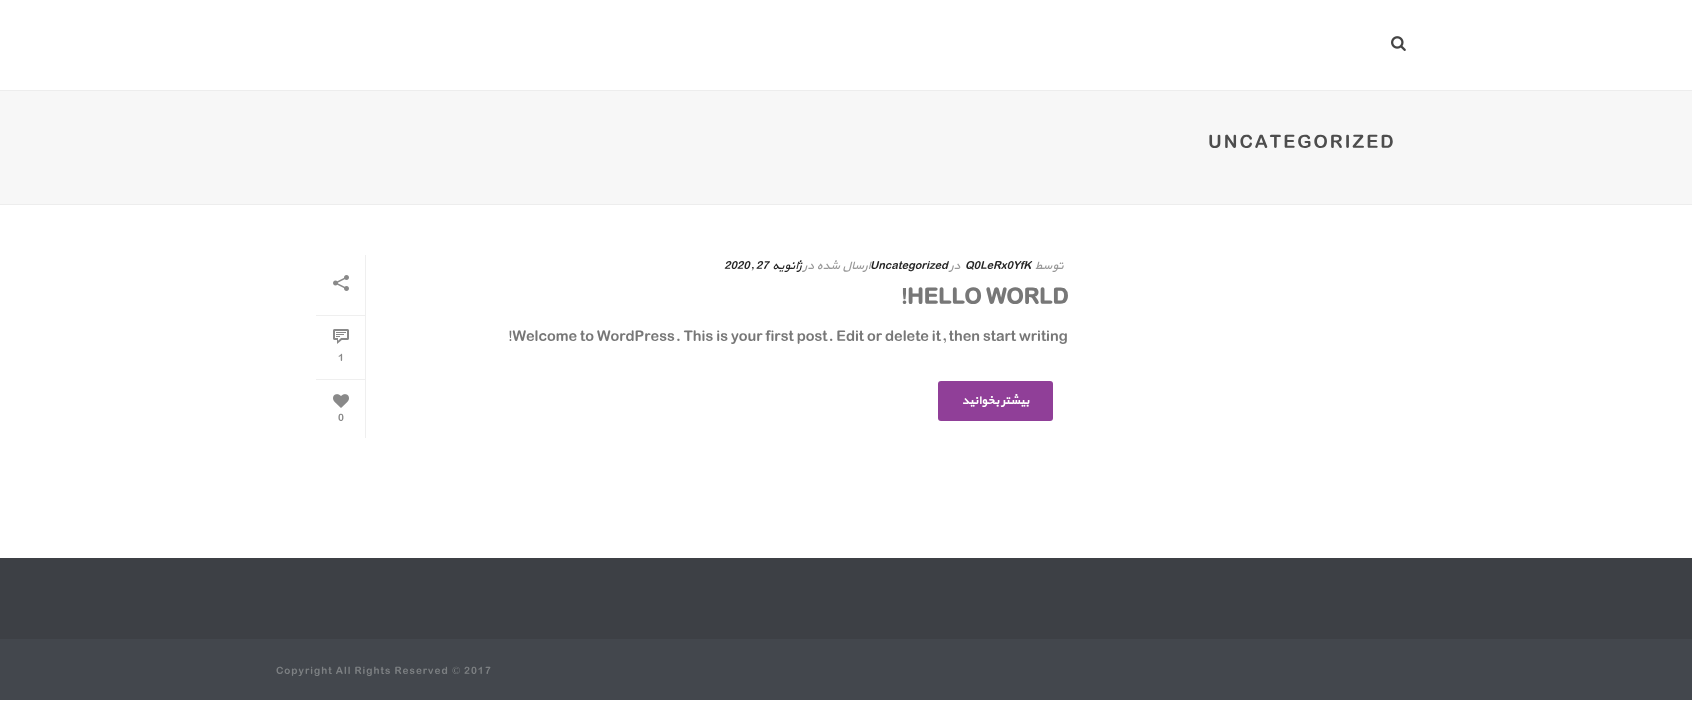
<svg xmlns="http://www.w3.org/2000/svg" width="1692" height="719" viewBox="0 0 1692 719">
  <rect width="100%" height="100%" fill="#ffffff"/>
  <rect x="0" y="91" width="1692" height="113" fill="#f7f7f7"/>
  <rect x="0" y="204" width="1692" height="1" fill="#ededed"/>
  <rect x="0" y="90" width="1692" height="1" fill="#ededed"/>
  <image x="1391" y="36" width="15" height="15" href="img1.png"/>
  <text x="1208" y="148" font-family="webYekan" font-size="20" letter-spacing="2" fill="#4d4d4d">UNCATEGORIZED</text>
  <rect x="365" y="255" width="1" height="183" fill="#efefef"/>
  <rect x="316" y="315" width="49" height="1" fill="#efefef"/>
  <image x="333" y="275" width="16" height="16" href="img2.png"/>
  <rect x="316" y="379" width="49" height="1" fill="#efefef"/>
  <image x="333" y="329" width="16" height="15" href="img3.png"/>
  <text x="338" y="361" font-family="webYekan" font-size="11" fill="#898989">1</text>
  <image x="333" y="394" width="16" height="14" href="img4.png"/>
  <text x="338" y="421" font-family="webYekan" font-size="11" fill="#898989">0</text>
  <text x="724" y="269" font-family="webYekan" font-size="12" font-style="italic" fill="#252525">2020, 27</text>
  <text x="870" y="269" font-family="webYekan" font-size="12" font-style="italic" fill="#252525">Uncategorized</text>
  <text x="870" y="269" font-family="webYekan" font-size="12" font-style="italic" direction="rtl" fill="#999999">ارسال شده در</text>
  <text x="801" y="269" font-family="webYekan" font-size="12" font-style="italic" direction="rtl" fill="#252525">ژانویه</text>
  <text x="960" y="269" font-family="webYekan" font-size="12" font-style="italic" direction="rtl" fill="#999999">در</text>
  <text x="965" y="269" font-family="webYekan" font-size="12" font-style="italic" fill="#252525">Q0LeRx0YfK</text>
  <text x="1063" y="269" font-family="webYekan" font-size="12" font-style="italic" direction="rtl" fill="#999999">توسط</text>
  <text x="899" y="304" font-family="webYekan" font-size="24" font-weight="bold" fill="#777777">!HELLO WORLD</text>
  <text x="507" y="341" font-family="webYekan" font-size="16" fill="#777777">!Welcome to WordPress. This is your first post. Edit or delete it, then start writing</text>
  <rect x="938" y="381" width="115" height="40" rx="3" fill="#903f98"/>
  <text x="1029" y="404" font-family="webYekan" font-size="12" font-weight="bold" direction="rtl" fill="#ffffff">بیشتر بخوانید</text>
  <rect x="0" y="558" width="1692" height="81" fill="#3d4045"/>
  <rect x="0" y="639" width="1692" height="61" fill="#43474d"/>
  <text x="276" y="674" font-family="webYekan" font-size="11" letter-spacing="1" fill="#7d8083">Copyright All Rights Reserved</text>
  <text x="452" y="674" font-family="Liberation Serif" font-size="11" letter-spacing="1" fill="#7d8083">©</text>
  <text x="464" y="674" font-family="webYekan" font-size="11" letter-spacing="1" fill="#7d8083">2017</text>
</svg>
